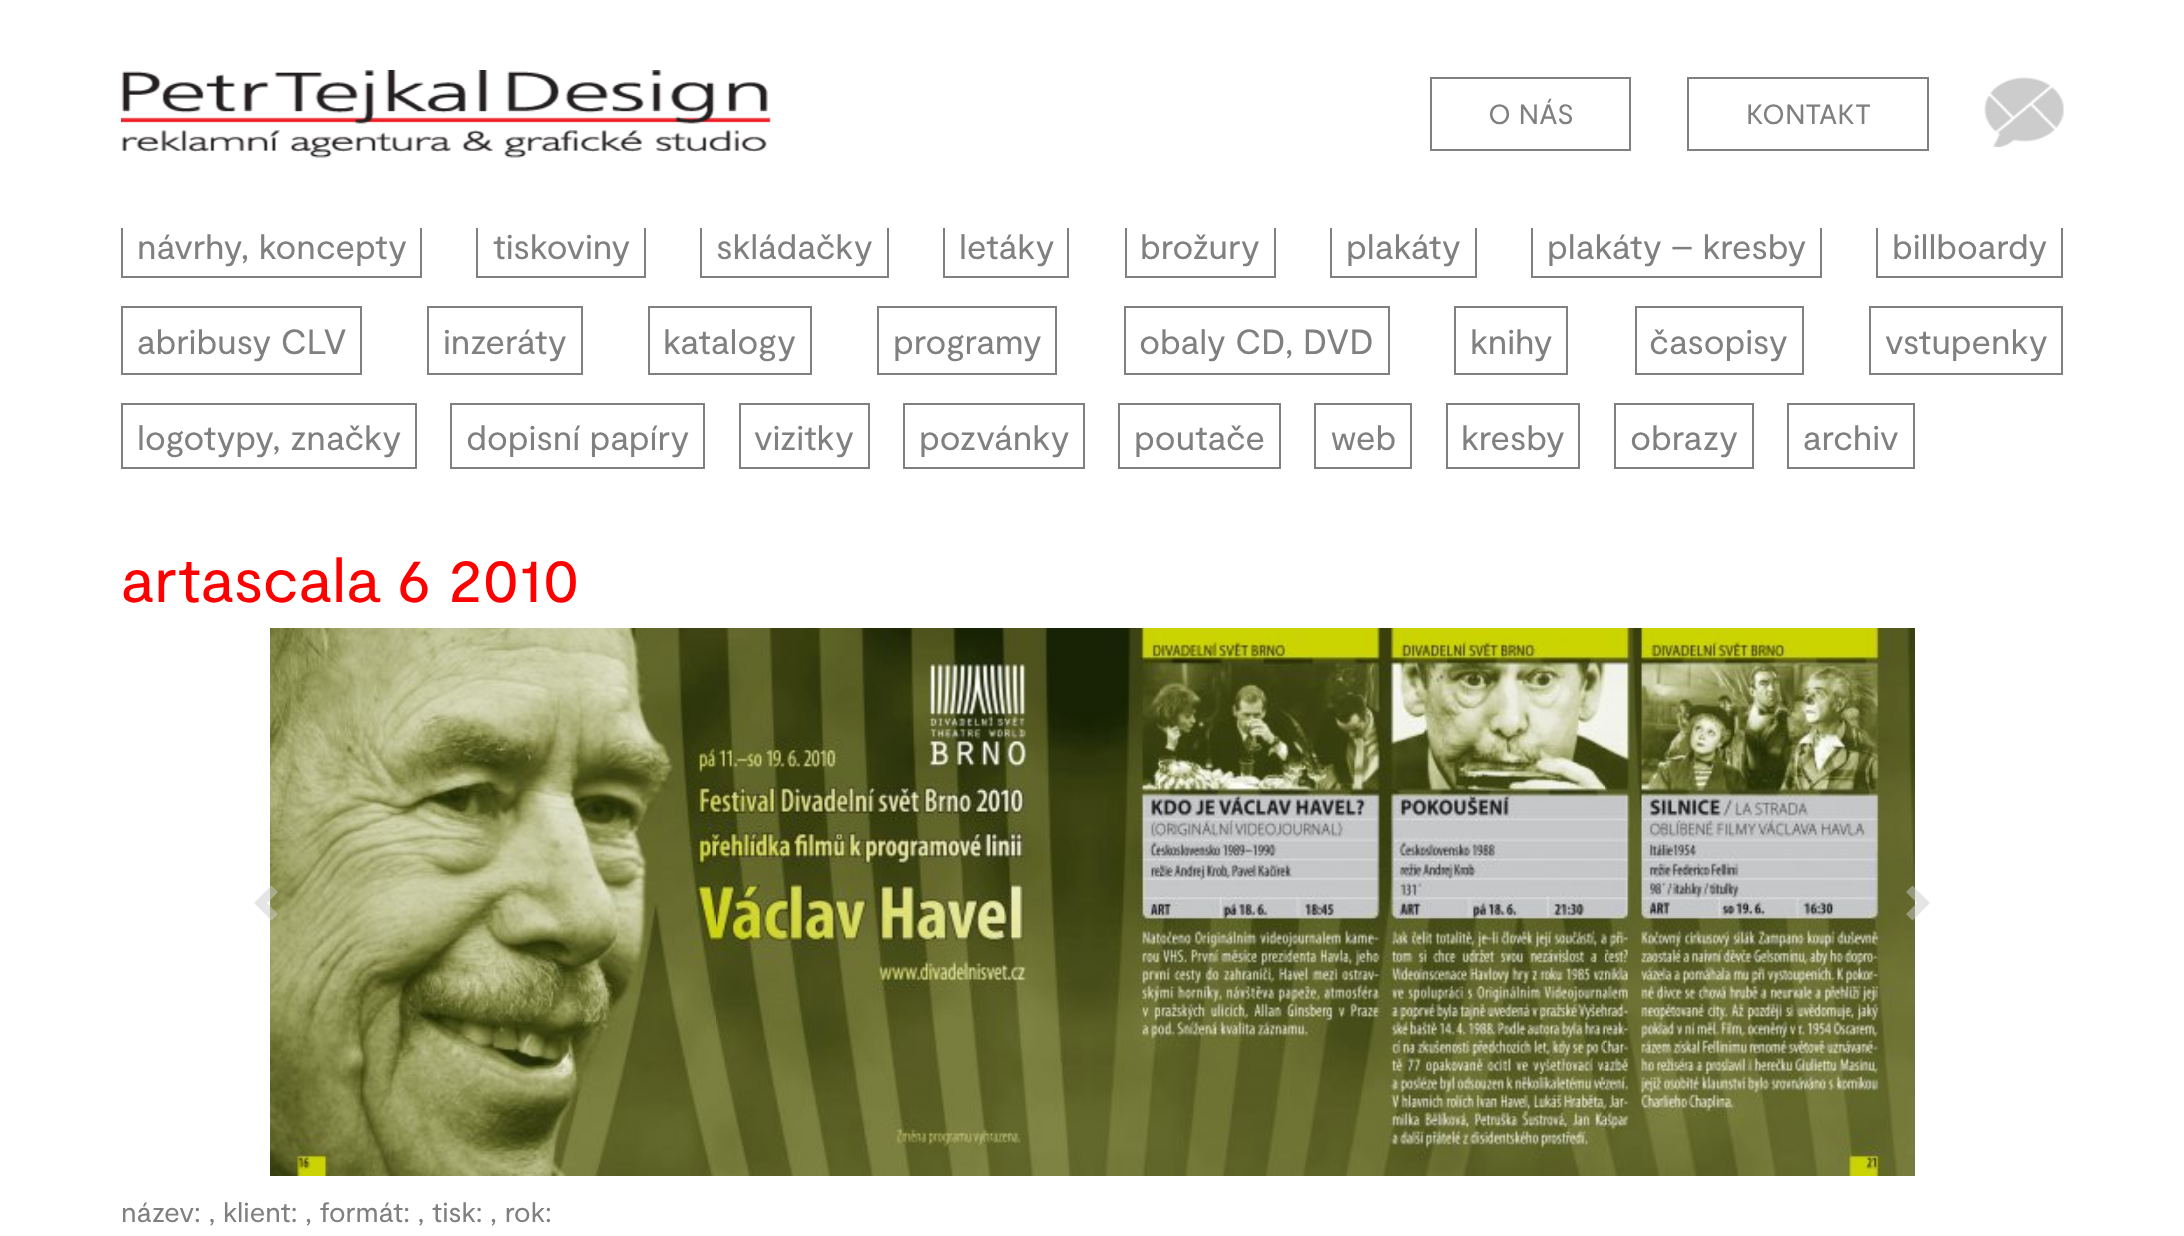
<svg xmlns="http://www.w3.org/2000/svg" width="2184" height="1236" viewBox="0 0 2184 1236">
  <rect width="100%" height="100%" fill="#ffffff"/>
  <rect x="122" y="213" width="299" height="64" fill="none" stroke="#808080" stroke-width="2"/>
  <rect x="477" y="213" width="168" height="64" fill="none" stroke="#808080" stroke-width="2"/>
  <rect x="701" y="213" width="187" height="64" fill="none" stroke="#808080" stroke-width="2"/>
  <rect x="944" y="213" width="124" height="64" fill="none" stroke="#808080" stroke-width="2"/>
  <rect x="1126" y="213" width="149" height="64" fill="none" stroke="#808080" stroke-width="2"/>
  <rect x="1331" y="213" width="145" height="64" fill="none" stroke="#808080" stroke-width="2"/>
  <rect x="1532" y="213" width="289" height="64" fill="none" stroke="#808080" stroke-width="2"/>
  <rect x="1877" y="213" width="185" height="64" fill="none" stroke="#808080" stroke-width="2"/>
  <rect x="121" y="212" width="1942" height="16" fill="#ffffff"/>
  <image x="121" y="70" width="650" height="88" href="img1.png"/>
  <rect x="1431" y="78" width="199" height="72" fill="none" stroke="#808080" stroke-width="2"/>
  <text x="1488" y="124" font-family="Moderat" font-size="28" fill="#808080">O NÁS</text>
  <rect x="1688" y="78" width="240" height="72" fill="none" stroke="#808080" stroke-width="2"/>
  <text x="1746" y="124" font-family="Moderat" font-size="28" fill="#808080">KONTAKT</text>
  <image x="1984" y="77" width="80" height="70" href="img2.png"/>
  <text x="137" y="259" font-family="Moderat" font-size="35" fill="#808080">návrhy, koncepty</text>
  <text x="493" y="259" font-family="Moderat" font-size="35" fill="#808080">tiskoviny</text>
  <text x="716" y="259" font-family="Moderat" font-size="35" fill="#808080">skládačky</text>
  <text x="959" y="259" font-family="Moderat" font-size="35" fill="#808080">letáky</text>
  <text x="1140" y="259" font-family="Moderat" font-size="35" fill="#808080">brožury</text>
  <text x="1346" y="259" font-family="Moderat" font-size="35" fill="#808080">plakáty</text>
  <text x="1547" y="259" font-family="Moderat" font-size="35" fill="#808080">plakáty – kresby</text>
  <text x="1892" y="259" font-family="Moderat" font-size="35" fill="#808080">billboardy</text>
  <rect x="122" y="307" width="239" height="67" fill="none" stroke="#808080" stroke-width="2"/>
  <text x="137" y="354" font-family="Moderat" font-size="35" fill="#808080">abribusy CLV</text>
  <rect x="428" y="307" width="154" height="67" fill="none" stroke="#808080" stroke-width="2"/>
  <text x="443" y="354" font-family="Moderat" font-size="35" fill="#808080">inzeráty</text>
  <rect x="649" y="307" width="162" height="67" fill="none" stroke="#808080" stroke-width="2"/>
  <text x="663" y="354" font-family="Moderat" font-size="35" fill="#808080">katalogy</text>
  <rect x="878" y="307" width="178" height="67" fill="none" stroke="#808080" stroke-width="2"/>
  <text x="893" y="354" font-family="Moderat" font-size="35" fill="#808080">programy</text>
  <rect x="1125" y="307" width="264" height="67" fill="none" stroke="#808080" stroke-width="2"/>
  <text x="1139" y="354" font-family="Moderat" font-size="35" fill="#808080">obaly CD, DVD</text>
  <rect x="1455" y="307" width="112" height="67" fill="none" stroke="#808080" stroke-width="2"/>
  <text x="1470" y="354" font-family="Moderat" font-size="35" fill="#808080">knihy</text>
  <rect x="1636" y="307" width="167" height="67" fill="none" stroke="#808080" stroke-width="2"/>
  <text x="1649" y="354" font-family="Moderat" font-size="35" fill="#808080">časopisy</text>
  <rect x="1870" y="307" width="192" height="67" fill="none" stroke="#808080" stroke-width="2"/>
  <text x="1885" y="354" font-family="Moderat" font-size="35" fill="#808080">vstupenky</text>
  <rect x="122" y="404" width="294" height="64" fill="none" stroke="#808080" stroke-width="2"/>
  <text x="137" y="450" font-family="Moderat" font-size="35" fill="#808080">logotypy, značky</text>
  <rect x="451" y="404" width="253" height="64" fill="none" stroke="#808080" stroke-width="2"/>
  <text x="466" y="450" font-family="Moderat" font-size="35" fill="#808080">dopisní papíry</text>
  <rect x="740" y="404" width="129" height="64" fill="none" stroke="#808080" stroke-width="2"/>
  <text x="754" y="450" font-family="Moderat" font-size="35" fill="#808080">vizitky</text>
  <rect x="904" y="404" width="180" height="64" fill="none" stroke="#808080" stroke-width="2"/>
  <text x="919" y="450" font-family="Moderat" font-size="35" fill="#808080">pozvánky</text>
  <rect x="1119" y="404" width="161" height="64" fill="none" stroke="#808080" stroke-width="2"/>
  <text x="1134" y="450" font-family="Moderat" font-size="35" fill="#808080">poutače</text>
  <rect x="1315" y="404" width="96" height="64" fill="none" stroke="#808080" stroke-width="2"/>
  <text x="1331" y="450" font-family="Moderat" font-size="35" fill="#808080">web</text>
  <rect x="1447" y="404" width="132" height="64" fill="none" stroke="#808080" stroke-width="2"/>
  <text x="1461" y="450" font-family="Moderat" font-size="35" fill="#808080">kresby</text>
  <rect x="1615" y="404" width="138" height="64" fill="none" stroke="#808080" stroke-width="2"/>
  <text x="1630" y="450" font-family="Moderat" font-size="35" fill="#808080">obrazy</text>
  <rect x="1788" y="404" width="126" height="64" fill="none" stroke="#808080" stroke-width="2"/>
  <text x="1803" y="450" font-family="Moderat" font-size="35" fill="#808080">archiv</text>
  <text x="121" y="602" font-family="Moderat" font-size="63" fill="#ff0000">artascala 6 2010</text>
  <image x="270" y="628" width="1645" height="548" href="img3.png"/>
  <path d="M271.5 885.5L254 903L271.5 920.5L278 914L267 903L278 892Z" fill="#cccccc" fill-opacity="0.5"/>
  <path d="M1912.5 885.5L1906 892L1917 903L1906 914L1912.5 920.5L1930 903Z" fill="#cccccc" fill-opacity="0.5"/>
  <text x="121" y="1222" font-family="Moderat" font-size="28" fill="#808080">název: , klient: , formát: , tisk: , rok:</text>
</svg>
